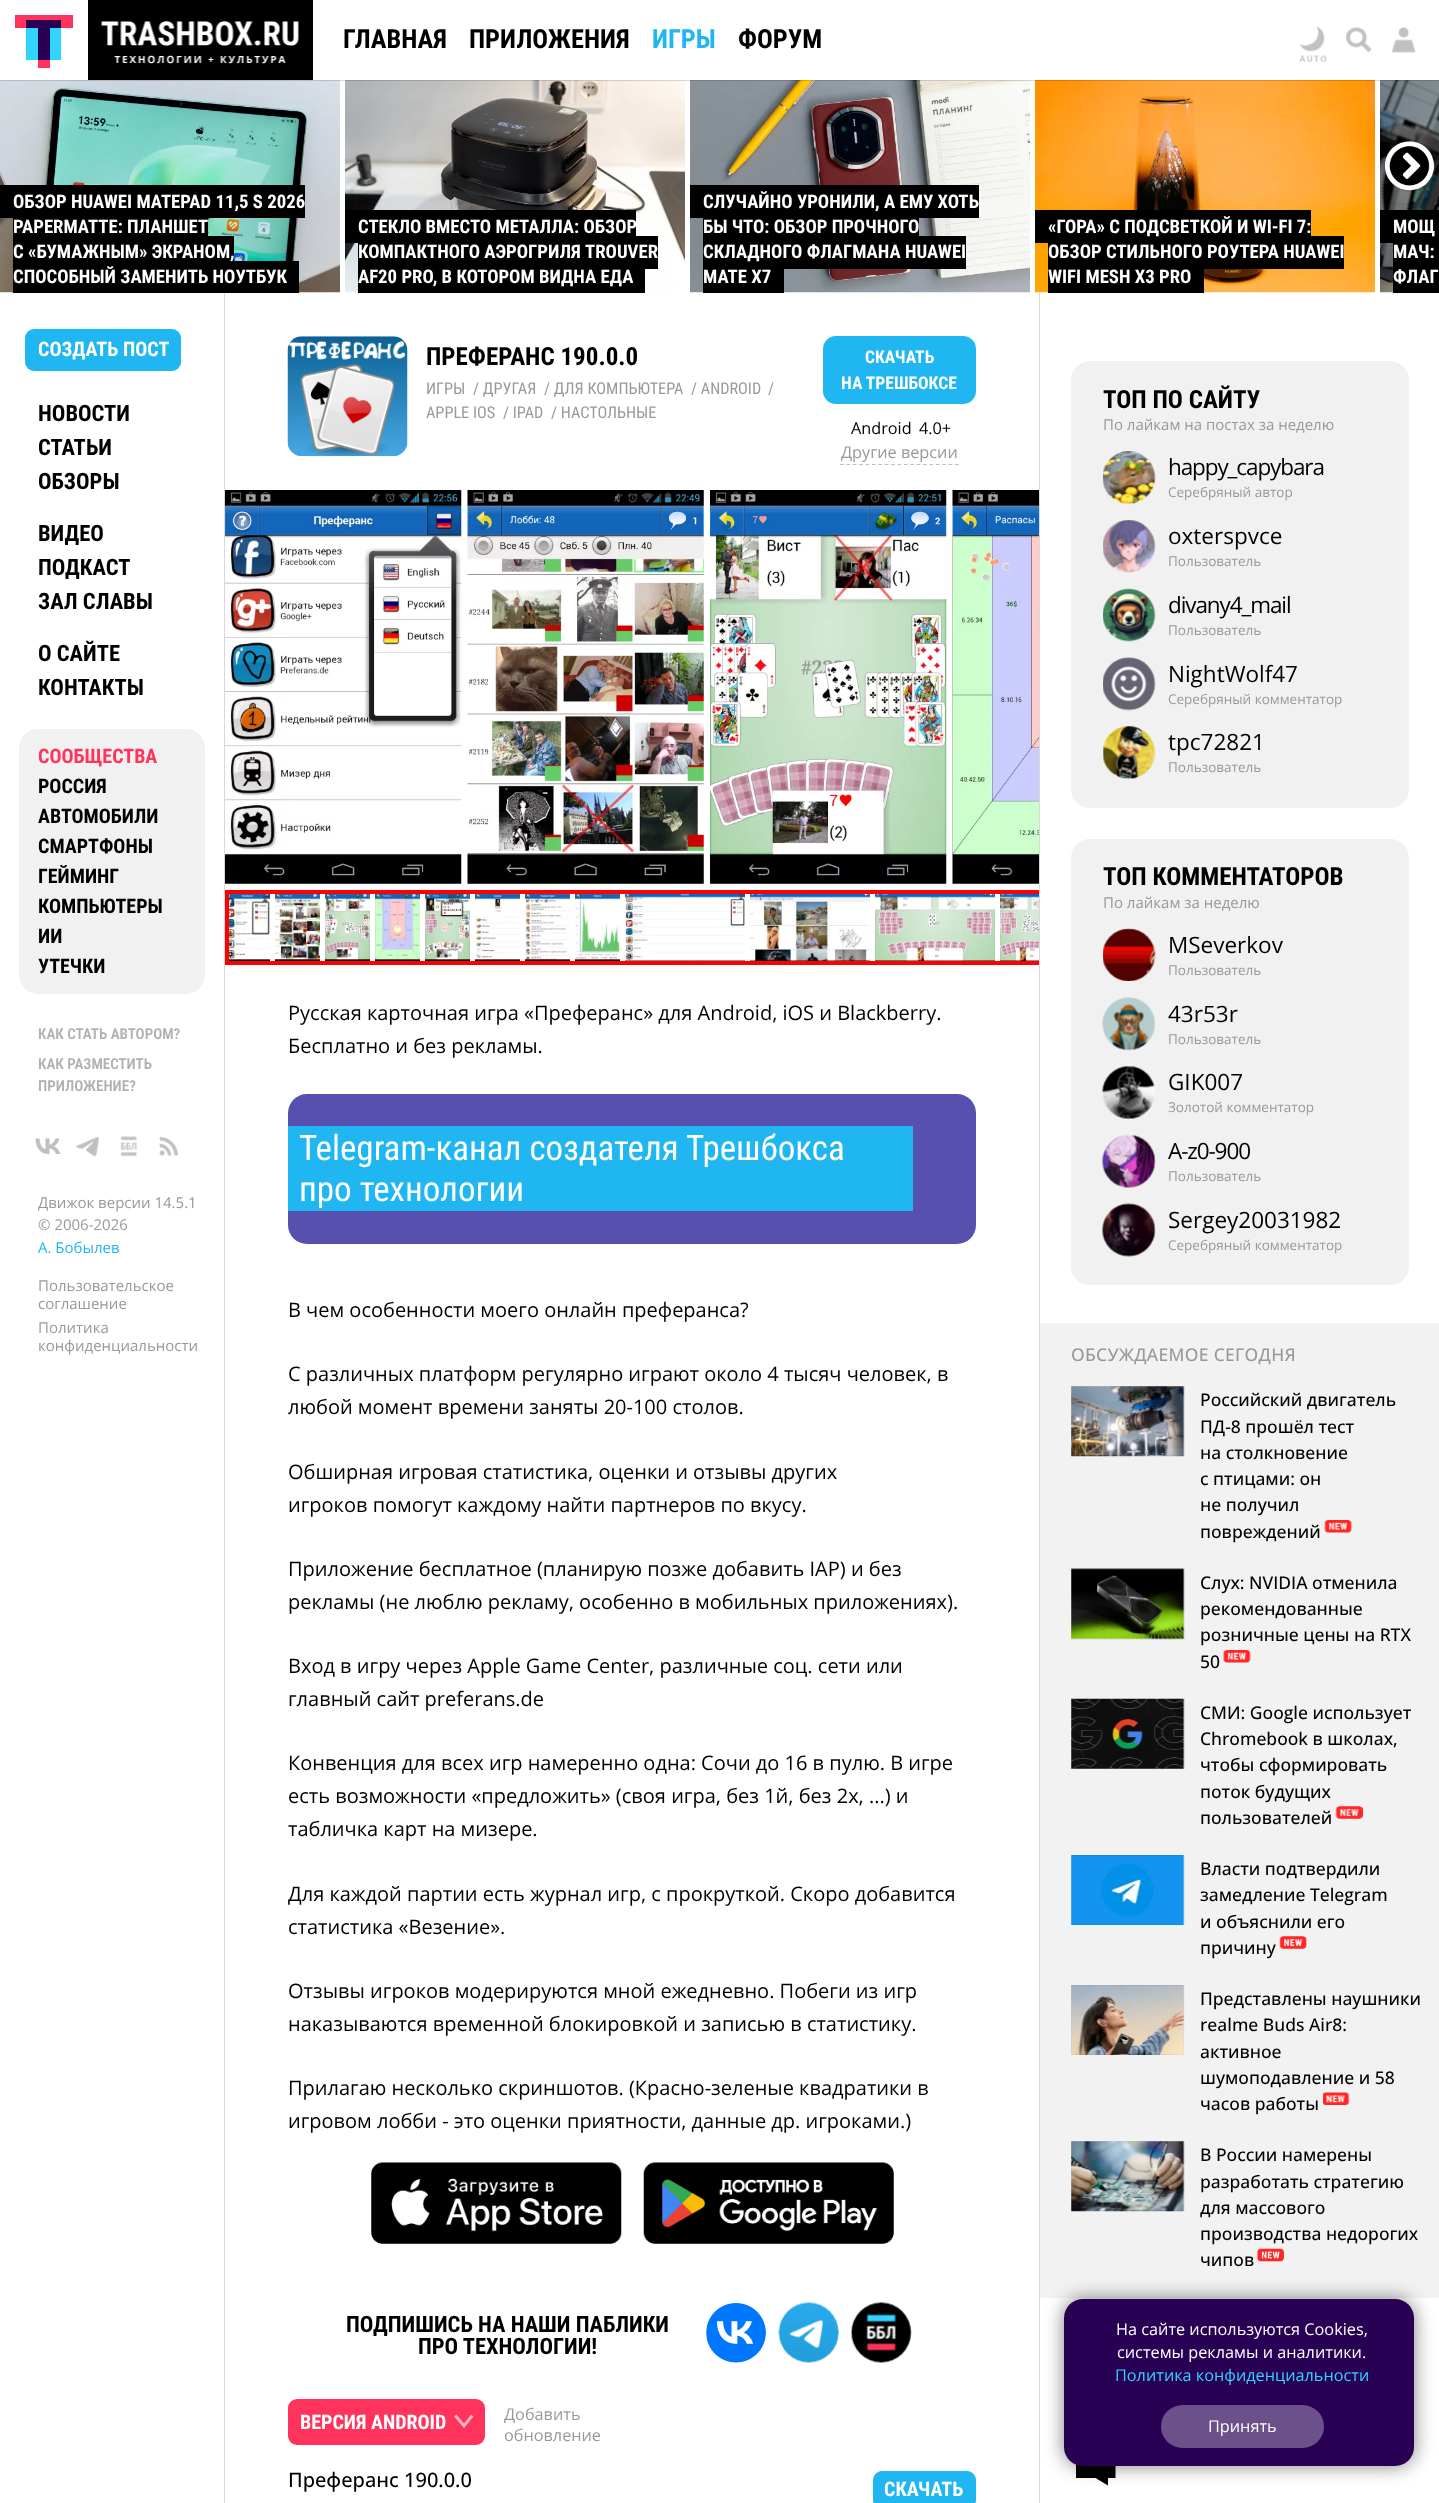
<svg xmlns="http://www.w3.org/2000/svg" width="1439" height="2503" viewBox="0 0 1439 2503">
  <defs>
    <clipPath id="clip1"><rect x="225" y="890" width="814" height="75"/></clipPath>
    <filter id="blur1" x="-50%" y="-200%" width="200%" height="500%"><feGaussianBlur stdDeviation="9.5"/></filter>
  </defs>
  <rect width="100%" height="100%" fill="#ffffff"/>
  <rect x="15" y="15" width="58" height="13" fill="#ff335c"/>
  <rect x="26" y="20" width="35" height="8" fill="#280054"/>
  <rect x="38" y="28" width="12" height="40" fill="#ff335c"/>
  <rect x="26" y="28" width="35" height="32" fill="#33d3ff"/>
  <rect x="38" y="28" width="12" height="32" fill="#280054"/>
  <rect x="88" y="0" width="225" height="80" fill="#000000"/>
  <image x="101" y="21" width="198" height="43" href="img1.png"/>
  <text x="343" y="48" font-family="Roboto Condensed" font-size="26.25" font-weight="bold" fill="#000000">ГЛАВНАЯ</text>
  <text x="469" y="48" font-family="Roboto Condensed" font-size="26.25" font-weight="bold" fill="#000000">ПРИЛОЖЕНИЯ</text>
  <text x="652" y="48" font-family="Roboto Condensed" font-size="26.25" font-weight="bold" fill="#1fb6f2">ИГРЫ</text>
  <text x="738" y="48" font-family="Roboto Condensed" font-size="26.25" font-weight="bold" fill="#000000">ФОРУМ</text>
  <image x="1299" y="26" width="28" height="37" href="img2.png"/>
  <image x="1345" y="27" width="27" height="26" href="img3.png"/>
  <image x="1391" y="27" width="25" height="26" href="img4.png"/>
  <image x="0" y="80" width="340" height="213" href="img6.png"/>
  <image x="345" y="80" width="340" height="213" href="img7.png"/>
  <image x="690" y="80" width="340" height="213" href="img8.png"/>
  <image x="1035" y="80" width="340" height="213" href="img9.png"/>
  <image x="1380" y="80" width="59" height="213" href="img10.png"/>
  <rect x="0" y="80" width="1439" height="1" fill="#000000" fill-opacity="0.15"/>
  <image x="1385" y="141" width="50" height="51" href="img5.png"/>
  <rect x="0" y="185" width="305" height="33" fill="#000000"/>
  <text x="13" y="208" font-family="Roboto Condensed" font-size="18.75" font-weight="bold" fill="#ffffff">ОБЗОР HUAWEI MATEPAD 11,5 S 2026</text>
  <rect x="13" y="218" width="195" height="18" fill="#000000"/>
  <text x="13" y="233" font-family="Roboto Condensed" font-size="18.75" font-weight="bold" fill="#ffffff">PAPERMATTE: ПЛАНШЕТ</text>
  <rect x="13" y="236" width="221" height="25" fill="#000000"/>
  <rect x="13" y="261" width="286" height="32" fill="#000000"/>
  <text x="13" y="258" font-family="Roboto Condensed" font-size="18.75" font-weight="bold" fill="#ffffff">С «БУМАЖНЫМ» ЭКРАНОМ,</text>
  <text x="13" y="283" font-family="Roboto Condensed" font-size="18.75" font-weight="bold" fill="#ffffff">СПОСОБНЫЙ ЗАМЕНИТЬ НОУТБУК</text>
  <rect x="345" y="210" width="291" height="33" fill="#000000"/>
  <text x="358" y="233" font-family="Roboto Condensed" font-size="18.75" font-weight="bold" fill="#ffffff">СТЕКЛО ВМЕСТО МЕТАЛЛА: ОБЗОР</text>
  <rect x="358" y="236" width="300" height="33" fill="#000000"/>
  <text x="358" y="258" font-family="Roboto Condensed" font-size="18.75" font-weight="bold" fill="#ffffff">КОМПАКТНОГО АЭРОГРИЛЯ TROUVER</text>
  <rect x="358" y="269" width="287" height="24" fill="#000000"/>
  <text x="358" y="283" font-family="Roboto Condensed" font-size="18.75" font-weight="bold" fill="#ffffff">AF20 PRO, В КОТОРОМ ВИДНА ЕДА</text>
  <rect x="690" y="185" width="289" height="33" fill="#000000"/>
  <text x="703" y="208" font-family="Roboto Condensed" font-size="18.75" font-weight="bold" fill="#ffffff">СЛУЧАЙНО УРОНИЛИ, А ЕМУ ХОТЬ</text>
  <rect x="703" y="218" width="216" height="18" fill="#000000"/>
  <text x="703" y="233" font-family="Roboto Condensed" font-size="18.75" font-weight="bold" fill="#ffffff">БЫ ЧТО: ОБЗОР ПРОЧНОГО</text>
  <rect x="703" y="236" width="263" height="33" fill="#000000"/>
  <text x="703" y="258" font-family="Roboto Condensed" font-size="18.75" font-weight="bold" fill="#ffffff">СКЛАДНОГО ФЛАГМАНА HUAWEI</text>
  <rect x="703" y="269" width="81" height="24" fill="#000000"/>
  <text x="703" y="283" font-family="Roboto Condensed" font-size="18.75" font-weight="bold" fill="#ffffff">MATE X7</text>
  <rect x="1035" y="210" width="276" height="33" fill="#000000"/>
  <rect x="1048" y="236" width="296" height="33" fill="#000000"/>
  <text x="1048" y="233" font-family="Roboto Condensed" font-size="18.75" font-weight="bold" fill="#ffffff">«ГОРА» С ПОДСВЕТКОЙ И WI-FI 7:</text>
  <text x="1048" y="258" font-family="Roboto Condensed" font-size="18.75" font-weight="bold" fill="#ffffff">ОБЗОР СТИЛЬНОГО РОУТЕРА HUAWEI</text>
  <rect x="1048" y="269" width="156" height="24" fill="#000000"/>
  <text x="1048" y="283" font-family="Roboto Condensed" font-size="18.75" font-weight="bold" fill="#ffffff">WIFI MESH X3 PRO</text>
  <rect x="1380" y="210" width="59" height="33" fill="#000000"/>
  <text x="1393" y="233" font-family="Roboto Condensed" font-size="18.75" font-weight="bold" fill="#ffffff">МОЩ</text>
  <rect x="1393" y="243" width="46" height="50" fill="#000000"/>
  <text x="1393" y="258" font-family="Roboto Condensed" font-size="18.75" font-weight="bold" fill="#ffffff">МАЧ:</text>
  <text x="1393" y="283" font-family="Roboto Condensed" font-size="18.75" font-weight="bold" fill="#ffffff">ФЛАГ</text>
  <rect x="224" y="293" width="1" height="2210" fill="#d9d9d9"/>
  <rect x="25" y="329" width="156" height="42" rx="9" fill="#1fb6f2"/>
  <text x="38" y="356" font-family="Roboto Condensed" font-size="20" font-weight="bold" fill="#ffffff">СОЗДАТЬ ПОСТ</text>
  <text x="38" y="421" font-family="Roboto Condensed" font-size="22.5" font-weight="bold" fill="#000000">НОВОСТИ</text>
  <text x="38" y="455" font-family="Roboto Condensed" font-size="22.5" font-weight="bold" fill="#000000">СТАТЬИ</text>
  <text x="38" y="489" font-family="Roboto Condensed" font-size="22.5" font-weight="bold" fill="#000000">ОБЗОРЫ</text>
  <text x="38" y="541" font-family="Roboto Condensed" font-size="22.5" font-weight="bold" fill="#000000">ВИДЕО</text>
  <text x="38" y="575" font-family="Roboto Condensed" font-size="22.5" font-weight="bold" fill="#000000">ПОДКАСТ</text>
  <text x="38" y="609" font-family="Roboto Condensed" font-size="22.5" font-weight="bold" fill="#000000">ЗАЛ СЛАВЫ</text>
  <text x="38" y="661" font-family="Roboto Condensed" font-size="22.5" font-weight="bold" fill="#000000">О САЙТЕ</text>
  <text x="38" y="695" font-family="Roboto Condensed" font-size="22.5" font-weight="bold" fill="#000000">КОНТАКТЫ</text>
  <rect x="19" y="729" width="186" height="265" rx="19" fill="#f1f1f1"/>
  <text x="38" y="763" font-family="Roboto Condensed" font-size="20" font-weight="bold" fill="#ff335c">СООБЩЕСТВА</text>
  <text x="38" y="793" font-family="Roboto Condensed" font-size="20" font-weight="bold" fill="#000000">РОССИЯ</text>
  <text x="38" y="823" font-family="Roboto Condensed" font-size="20" font-weight="bold" fill="#000000">АВТОМОБИЛИ</text>
  <text x="38" y="853" font-family="Roboto Condensed" font-size="20" font-weight="bold" fill="#000000">СМАРТФОНЫ</text>
  <text x="38" y="883" font-family="Roboto Condensed" font-size="20" font-weight="bold" fill="#000000">ГЕЙМИНГ</text>
  <text x="38" y="913" font-family="Roboto Condensed" font-size="20" font-weight="bold" fill="#000000">КОМПЬЮТЕРЫ</text>
  <text x="38" y="943" font-family="Roboto Condensed" font-size="20" font-weight="bold" fill="#000000">ИИ</text>
  <text x="38" y="973" font-family="Roboto Condensed" font-size="20" font-weight="bold" fill="#000000">УТЕЧКИ</text>
  <text x="38" y="1039" font-family="Roboto Condensed" font-size="15" font-weight="600" fill="#b1b1b1">КАК СТАТЬ АВТОРОМ?</text>
  <text x="38" y="1069" font-family="Roboto Condensed" font-size="15" font-weight="600" fill="#b1b1b1">КАК РАЗМЕСТИТЬ</text>
  <text x="38" y="1091" font-family="Roboto Condensed" font-size="15" font-weight="600" fill="#b1b1b1">ПРИЛОЖЕНИЕ?</text>
  <image x="35" y="1138" width="26" height="17" href="img11.png"/>
  <image x="75" y="1137" width="24" height="20" href="img12.png"/>
  <image x="120" y="1136" width="17" height="21" href="img13.png"/>
  <image x="159" y="1136" width="19" height="21" href="img14.png"/>
  <text x="38" y="1208" font-family="Open Sans" font-size="15" fill="#999999">Движок версии 14.5.1</text>
  <text x="38" y="1230" font-family="Open Sans" font-size="15" fill="#999999">© 2006-2026</text>
  <text x="38" y="1253" font-family="Open Sans" font-size="15" fill="#1fb6f2">А. Бобылев</text>
  <text x="38" y="1291" font-family="Open Sans" font-size="15" fill="#999999">Пользовательское</text>
  <text x="38" y="1309" font-family="Open Sans" font-size="15" fill="#999999">соглашение</text>
  <text x="38" y="1333" font-family="Open Sans" font-size="15" fill="#999999">Политика</text>
  <text x="38" y="1351" font-family="Open Sans" font-size="15" fill="#999999">конфиденциальности</text>
  <rect x="1039" y="293" width="1" height="2210" fill="#d9d9d9"/>
  <image x="287" y="336" width="121" height="121" href="img15.png"/>
  <text x="426" y="365" font-family="Roboto Condensed" font-size="25" font-weight="bold" fill="#000000">ПРЕФЕРАНС 190.0.0</text>
  <text x="426" y="394" font-family="Roboto Condensed" font-size="16.25" fill="#999999">ИГРЫ</text>
  <text x="473" y="394" font-family="Roboto Condensed" font-size="16.25" fill="#999999">/ ДРУГАЯ</text>
  <text x="544" y="394" font-family="Roboto Condensed" font-size="16.25" fill="#999999">/ ДЛЯ КОМПЬЮТЕРА</text>
  <text x="691" y="394" font-family="Roboto Condensed" font-size="16.25" fill="#999999">/ ANDROID</text>
  <text x="768" y="394" font-family="Roboto Condensed" font-size="16.25" fill="#999999">/</text>
  <text x="426" y="418" font-family="Roboto Condensed" font-size="16.25" fill="#999999">APPLE IOS</text>
  <text x="503" y="418" font-family="Roboto Condensed" font-size="16.25" fill="#999999">/ IPAD</text>
  <text x="551" y="418" font-family="Roboto Condensed" font-size="16.25" fill="#999999">/ НАСТОЛЬНЫЕ</text>
  <rect x="823" y="336" width="153" height="68" rx="13" fill="#1fb6f2"/>
  <text x="865" y="363" font-family="Roboto Condensed" font-size="17.5" font-weight="bold" fill="#ffffff">СКАЧАТЬ</text>
  <text x="841" y="389" font-family="Roboto Condensed" font-size="17.5" font-weight="bold" fill="#ffffff">НА ТРЕШБОКСЕ</text>
  <text x="851" y="434" font-family="Open Sans" font-size="16.25" fill="#000000">Android</text>
  <text x="919" y="434" font-family="Open Sans" font-size="16.25" fill="#000000">4.0+</text>
  <text x="841" y="458" font-family="Open Sans" font-size="16.25" fill="#999999">Другие версии</text>
  <path d="M840 464.5H959" fill="none" stroke="#c0c0c0" stroke-width="1.2" stroke-dasharray="3.75 2.64"/>
  <image x="225" y="490" width="237" height="394" href="img16.png"/>
  <image x="467" y="490" width="237" height="394" href="img17.png"/>
  <image x="710" y="490" width="237" height="394" href="img18.png"/>
  <image x="952" y="490" width="87" height="394" href="img19.png"/>
  <image x="229" y="894" width="41" height="67" href="img20.png"/>
  <image x="275" y="894" width="45" height="67" href="img21.png"/>
  <image x="325" y="894" width="45" height="67" href="img22.png"/>
  <image x="375" y="894" width="45" height="67" href="img23.png"/>
  <image x="425" y="894" width="45" height="67" href="img24.png"/>
  <image x="475" y="894" width="45" height="67" href="img25.png"/>
  <image x="525" y="894" width="45" height="67" href="img26.png"/>
  <image x="575" y="894" width="45" height="67" href="img27.png"/>
  <image x="625" y="894" width="120" height="67" href="img28.png"/>
  <image x="750" y="894" width="120" height="67" href="img29.png"/>
  <image x="875" y="894" width="120" height="67" href="img30.png"/>
  <image x="1000" y="894" width="39" height="67" href="img31.png"/>
  <g clip-path="url(#clip1)">
    <rect x="227" y="892" width="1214" height="71" fill="none" stroke="#ff0000" stroke-width="4"/>
  </g>
  <text x="288" y="1020" font-family="Open Sans" font-size="20" fill="#000000">Русская карточная игра «Преферанс» для Android, iOS и Blackberry.</text>
  <text x="288" y="1053" font-family="Open Sans" font-size="20" fill="#000000">Бесплатно и без рекламы.</text>
  <rect x="288" y="1094" width="688" height="150" rx="19" fill="#5750af"/>
  <rect x="288" y="1126" width="625" height="85" fill="#1fb6f2"/>
  <text x="299" y="1160" font-family="Roboto Condensed" font-size="35" fill="#ffffff">Telegram-канал создателя Трешбокса</text>
  <text x="299" y="1201" font-family="Roboto Condensed" font-size="35" fill="#ffffff">про технологии</text>
  <text x="288" y="1317" font-family="Open Sans" font-size="20" fill="#000000">В чем особенности моего онлайн преферанса?</text>
  <text x="288" y="1381" font-family="Open Sans" font-size="20" fill="#000000">С различных платформ регулярно играют около 4 тысяч человек, в</text>
  <text x="288" y="1414" font-family="Open Sans" font-size="20" fill="#000000">любой момент времени заняты 20-100 столов.</text>
  <text x="288" y="1479" font-family="Open Sans" font-size="20" fill="#000000">Обширная игровая статистика, оценки и отзывы других</text>
  <text x="288" y="1512" font-family="Open Sans" font-size="20" fill="#000000">игроков помогут каждому найти партнеров по вкусу.</text>
  <text x="288" y="1576" font-family="Open Sans" font-size="20" fill="#000000">Приложение бесплатное (планирую позже добавить IAP) и без</text>
  <text x="288" y="1609" font-family="Open Sans" font-size="20" fill="#000000">рекламы (не люблю рекламу, особенно в мобильных приложениях).</text>
  <text x="288" y="1673" font-family="Open Sans" font-size="20" fill="#000000">Вход в игру через Apple Game Center, различные соц. сети или</text>
  <text x="288" y="1706" font-family="Open Sans" font-size="20" fill="#000000">главный сайт preferans.de</text>
  <text x="288" y="1770" font-family="Open Sans" font-size="20" fill="#000000">Конвенция для всех игр намеренно одна: Сочи до 16 в пулю. В игре</text>
  <text x="288" y="1803" font-family="Open Sans" font-size="20" fill="#000000">есть возможности «предложить» (своя игра, без 1й, без 2х, ...) и</text>
  <text x="288" y="1836" font-family="Open Sans" font-size="20" fill="#000000">табличка карт на мизере.</text>
  <text x="288" y="1901" font-family="Open Sans" font-size="20" fill="#000000">Для каждой партии есть журнал игр, с прокруткой. Скоро добавится</text>
  <text x="288" y="1934" font-family="Open Sans" font-size="20" fill="#000000">статистика «Везение».</text>
  <text x="288" y="1998" font-family="Open Sans" font-size="20" fill="#000000">Отзывы игроков модерируются мной ежедневно. Побеги из игр</text>
  <text x="288" y="2031" font-family="Open Sans" font-size="20" fill="#000000">наказываются временной блокировкой и записью в статистику.</text>
  <text x="288" y="2095" font-family="Open Sans" font-size="20" fill="#000000">Прилагаю несколько скриншотов. (Красно-зеленые квадратики в</text>
  <text x="288" y="2128" font-family="Open Sans" font-size="20" fill="#000000">игровом лобби - это оценки приятности, данные др. игроками.)</text>
  <image x="371" y="2162" width="251" height="82" href="img32.png"/>
  <image x="643" y="2162" width="251" height="82" href="img33.png"/>
  <text x="346" y="2332" font-family="Roboto Condensed" font-size="22.5" font-weight="bold" fill="#000000">ПОДПИШИСЬ НА НАШИ ПАБЛИКИ</text>
  <text x="418" y="2354" font-family="Roboto Condensed" font-size="22.5" font-weight="bold" fill="#000000">ПРО ТЕХНОЛОГИИ!</text>
  <image x="706" y="2303" width="60" height="60" href="img34.png"/>
  <image x="778" y="2302" width="61" height="61" href="img35.png"/>
  <image x="850" y="2302" width="62" height="61" href="img36.png"/>
  <rect x="288" y="2399" width="197" height="46" rx="9" fill="#ff335c"/>
  <text x="300" y="2429" font-family="Roboto Condensed" font-size="20" font-weight="bold" fill="#ffffff">ВЕРСИЯ ANDROID</text>
  <path d="M464 2423.5L471 2414.5L473.5 2416.5L464 2428L454 2416.5L456.5 2414.5Z" fill="#ffb5c4"/>
  <text x="504" y="2420" font-family="Open Sans" font-size="16.25" fill="#999999">Добавить</text>
  <text x="504" y="2441" font-family="Open Sans" font-size="16.25" fill="#999999">обновление</text>
  <text x="288" y="2487" font-family="Open Sans" font-size="20" font-weight="500" fill="#000000">Преферанс 190.0.0</text>
  <rect x="873.5" y="2471.5" width="102" height="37" rx="8.5" fill="#1fb6f2" stroke="#1fb6f2"/>
  <text x="884" y="2496" font-family="Roboto Condensed" font-size="20" font-weight="bold" fill="#ffffff">СКАЧАТЬ</text>
  <path d="M1115.5 2454H1076V2478H1095.5L1108 2485.5V2478H1115.5Z" fill="#000000"/>
  <rect x="1071" y="361" width="338" height="447" rx="19" fill="#f1f1f1"/>
  <text x="1103" y="408" font-family="Roboto Condensed" font-size="25" font-weight="bold" fill="#000000">ТОП ПО САЙТУ</text>
  <text x="1103" y="430" font-family="Open Sans" font-size="15" fill="#999999">По лайкам на постах за неделю</text>
  <image x="1103" y="451" width="53" height="54" href="img37.png"/>
  <text x="1168" y="475" font-family="Open Sans" font-size="22.5" letter-spacing="-1.1" fill="#000000">happy_capybara</text>
  <text x="1168" y="497" font-family="Open Sans" font-size="13.5" fill="#999999">Серебряный автор</text>
  <image x="1103" y="519" width="53" height="54" href="img38.png"/>
  <text x="1168" y="544" font-family="Open Sans" font-size="22.5" fill="#000000">oxterspvce</text>
  <text x="1168" y="566" font-family="Open Sans" font-size="13.5" fill="#999999">Пользователь</text>
  <image x="1103" y="588" width="53" height="54" href="img39.png"/>
  <text x="1168" y="613" font-family="Open Sans" font-size="22.5" letter-spacing="-1.1" fill="#000000">divany4_mail</text>
  <text x="1168" y="635" font-family="Open Sans" font-size="13.5" fill="#999999">Пользователь</text>
  <image x="1103" y="657" width="53" height="54" href="img40.png"/>
  <text x="1168" y="682" font-family="Open Sans" font-size="22.5" fill="#000000">NightWolf47</text>
  <text x="1168" y="704" font-family="Open Sans" font-size="13.5" fill="#999999">Серебряный комментатор</text>
  <image x="1103" y="726" width="53" height="54" href="img41.png"/>
  <text x="1168" y="750" font-family="Open Sans" font-size="22.5" fill="#000000">tpc72821</text>
  <text x="1168" y="772" font-family="Open Sans" font-size="13.5" fill="#999999">Пользователь</text>
  <rect x="1071" y="839" width="338" height="446" rx="19" fill="#f1f1f1"/>
  <text x="1103" y="885" font-family="Roboto Condensed" font-size="25" font-weight="bold" fill="#000000">ТОП КОММЕНТАТОРОВ</text>
  <text x="1103" y="908" font-family="Open Sans" font-size="15" fill="#999999">По лайкам за неделю</text>
  <image x="1103" y="928" width="53" height="53" href="img42.png"/>
  <text x="1168" y="953" font-family="Open Sans" font-size="22.5" fill="#000000">MSeverkov</text>
  <text x="1168" y="975" font-family="Open Sans" font-size="13.5" fill="#999999">Пользователь</text>
  <image x="1102" y="997" width="54" height="54" href="img43.png"/>
  <text x="1168" y="1022" font-family="Open Sans" font-size="22.5" fill="#000000">43r53r</text>
  <text x="1168" y="1044" font-family="Open Sans" font-size="13.5" fill="#999999">Пользователь</text>
  <image x="1102" y="1065" width="53" height="55" href="img44.png"/>
  <text x="1168" y="1090" font-family="Open Sans" font-size="22.5" fill="#000000">GIK007</text>
  <text x="1168" y="1112" font-family="Open Sans" font-size="13.5" fill="#999999">Золотой комментатор</text>
  <image x="1102" y="1134" width="54" height="54" href="img45.png"/>
  <text x="1168" y="1159" font-family="Open Sans" font-size="22.5" letter-spacing="-1.1" fill="#000000">A-z0-900</text>
  <text x="1168" y="1181" font-family="Open Sans" font-size="13.5" fill="#999999">Пользователь</text>
  <image x="1102" y="1203" width="54" height="54" href="img46.png"/>
  <text x="1168" y="1228" font-family="Open Sans" font-size="22.5" fill="#000000">Sergey20031982</text>
  <text x="1168" y="1250" font-family="Open Sans" font-size="13.5" fill="#999999">Серебряный комментатор</text>
  <rect x="1040" y="1323" width="399" height="975" fill="#f2f2f2"/>
  <text x="1071" y="1361" font-family="Open Sans" font-size="17.5" font-weight="500" letter-spacing="0.3" fill="#999999">ОБСУЖДАЕМОЕ СЕГОДНЯ</text>
  <image x="1071" y="1386" width="114" height="71" href="img47.png"/>
  <rect x="1071.5" y="1386.5" width="112" height="69" fill="none" stroke="#000000" stroke-opacity="0.05"/>
  <text x="1200" y="1406" font-family="Open Sans" font-size="17.5" font-weight="500" fill="#000000">Российский двигатель</text>
  <text x="1200" y="1433" font-family="Open Sans" font-size="17.5" font-weight="500" fill="#000000">ПД-8 прошёл тест</text>
  <text x="1200" y="1459" font-family="Open Sans" font-size="17.5" font-weight="500" fill="#000000">на столкновение</text>
  <text x="1200" y="1485" font-family="Open Sans" font-size="17.5" font-weight="500" fill="#000000">с птицами: он</text>
  <text x="1200" y="1511" font-family="Open Sans" font-size="17.5" font-weight="500" fill="#000000">не получил</text>
  <text x="1200" y="1538" font-family="Open Sans" font-size="17.5" font-weight="500" fill="#000000">повреждений</text>
  <image x="1324" y="1520" width="28" height="13" href="img48.png"/>
  <image x="1071" y="1568" width="114" height="72" href="img49.png"/>
  <rect x="1071.5" y="1569.5" width="112" height="69" fill="none" stroke="#000000" stroke-opacity="0.05"/>
  <text x="1200" y="1589" font-family="Open Sans" font-size="17.5" font-weight="500" fill="#000000">Слух: NVIDIA отменила</text>
  <text x="1200" y="1615" font-family="Open Sans" font-size="17.5" font-weight="500" fill="#000000">рекомендованные</text>
  <text x="1200" y="1641" font-family="Open Sans" font-size="17.5" font-weight="500" fill="#000000">розничные цены на RTX</text>
  <text x="1200" y="1668" font-family="Open Sans" font-size="17.5" font-weight="500" fill="#000000">50</text>
  <image x="1223" y="1650" width="28" height="13" href="img50.png"/>
  <image x="1071" y="1698" width="114" height="71" href="img51.png"/>
  <rect x="1071.5" y="1699.5" width="112" height="69" fill="none" stroke="#000000" stroke-opacity="0.05"/>
  <text x="1200" y="1719" font-family="Open Sans" font-size="17.5" font-weight="500" fill="#000000">СМИ: Google использует</text>
  <text x="1200" y="1745" font-family="Open Sans" font-size="17.5" font-weight="500" fill="#000000">Chromebook в школах,</text>
  <text x="1200" y="1771" font-family="Open Sans" font-size="17.5" font-weight="500" fill="#000000">чтобы сформировать</text>
  <text x="1200" y="1798" font-family="Open Sans" font-size="17.5" font-weight="500" fill="#000000">поток будущих</text>
  <text x="1200" y="1824" font-family="Open Sans" font-size="17.5" font-weight="500" fill="#000000">пользователей</text>
  <image x="1335" y="1806" width="28" height="13" href="img52.png"/>
  <image x="1071" y="1855" width="114" height="70" href="img53.png"/>
  <rect x="1071.5" y="1855.5" width="112" height="69" fill="none" stroke="#000000" stroke-opacity="0.05"/>
  <text x="1200" y="1875" font-family="Open Sans" font-size="17.5" font-weight="500" fill="#000000">Власти подтвердили</text>
  <text x="1200" y="1901" font-family="Open Sans" font-size="17.5" font-weight="500" fill="#000000">замедление Telegram</text>
  <text x="1200" y="1928" font-family="Open Sans" font-size="17.5" font-weight="500" fill="#000000">и объяснили его</text>
  <image x="1279" y="1936" width="28" height="13" href="img54.png"/>
  <text x="1200" y="1954" font-family="Open Sans" font-size="17.5" font-weight="500" fill="#000000">причину</text>
  <image x="1071" y="1985" width="114" height="70" href="img55.png"/>
  <rect x="1071.5" y="1985.5" width="112" height="69" fill="none" stroke="#000000" stroke-opacity="0.05"/>
  <text x="1200" y="2005" font-family="Open Sans" font-size="17.5" font-weight="500" fill="#000000">Представлены наушники</text>
  <text x="1200" y="2031" font-family="Open Sans" font-size="17.5" font-weight="500" fill="#000000">realme Buds Air8:</text>
  <text x="1200" y="2058" font-family="Open Sans" font-size="17.5" font-weight="500" fill="#000000">активное</text>
  <text x="1200" y="2084" font-family="Open Sans" font-size="17.5" font-weight="500" fill="#000000">шумоподавление и 58</text>
  <text x="1200" y="2110" font-family="Open Sans" font-size="17.5" font-weight="500" fill="#000000">часов работы</text>
  <image x="1323" y="2092" width="27" height="13" href="img56.png"/>
  <image x="1071" y="2141" width="114" height="71" href="img57.png"/>
  <rect x="1071.5" y="2141.5" width="112" height="69" fill="none" stroke="#000000" stroke-opacity="0.05"/>
  <text x="1200" y="2161" font-family="Open Sans" font-size="17.5" font-weight="500" fill="#000000">В России намерены</text>
  <text x="1200" y="2188" font-family="Open Sans" font-size="17.5" font-weight="500" fill="#000000">разработать стратегию</text>
  <text x="1200" y="2214" font-family="Open Sans" font-size="17.5" font-weight="500" fill="#000000">для массового</text>
  <text x="1200" y="2240" font-family="Open Sans" font-size="17.5" font-weight="500" fill="#000000">производства недорогих</text>
  <text x="1200" y="2266" font-family="Open Sans" font-size="17.5" font-weight="500" fill="#000000">чипов</text>
  <image x="1257" y="2248" width="27" height="14" href="img58.png"/>
  <rect x="1064" y="2299" width="350" height="167" rx="19" fill="#000000" fill-opacity="0.5" filter="url(#blur1)"/>
  <rect x="1064" y="2299" width="350" height="167" rx="19" fill="#280054"/>
  <text x="1116" y="2335" font-family="Open Sans" font-size="16.25" fill="#ffffff">На сайте используются Cookies,</text>
  <text x="1117" y="2358" font-family="Open Sans" font-size="16.25" fill="#ffffff">системы рекламы и аналитики.</text>
  <text x="1115" y="2381" font-family="Open Sans" font-size="16.25" fill="#33d3ff">Политика конфиденциальности</text>
  <rect x="1161" y="2405" width="163" height="43" rx="21.5" fill="#6c508a"/>
  <text x="1208" y="2432" font-family="Open Sans" font-size="16.25" fill="#ffffff">Принять</text>
</svg>
